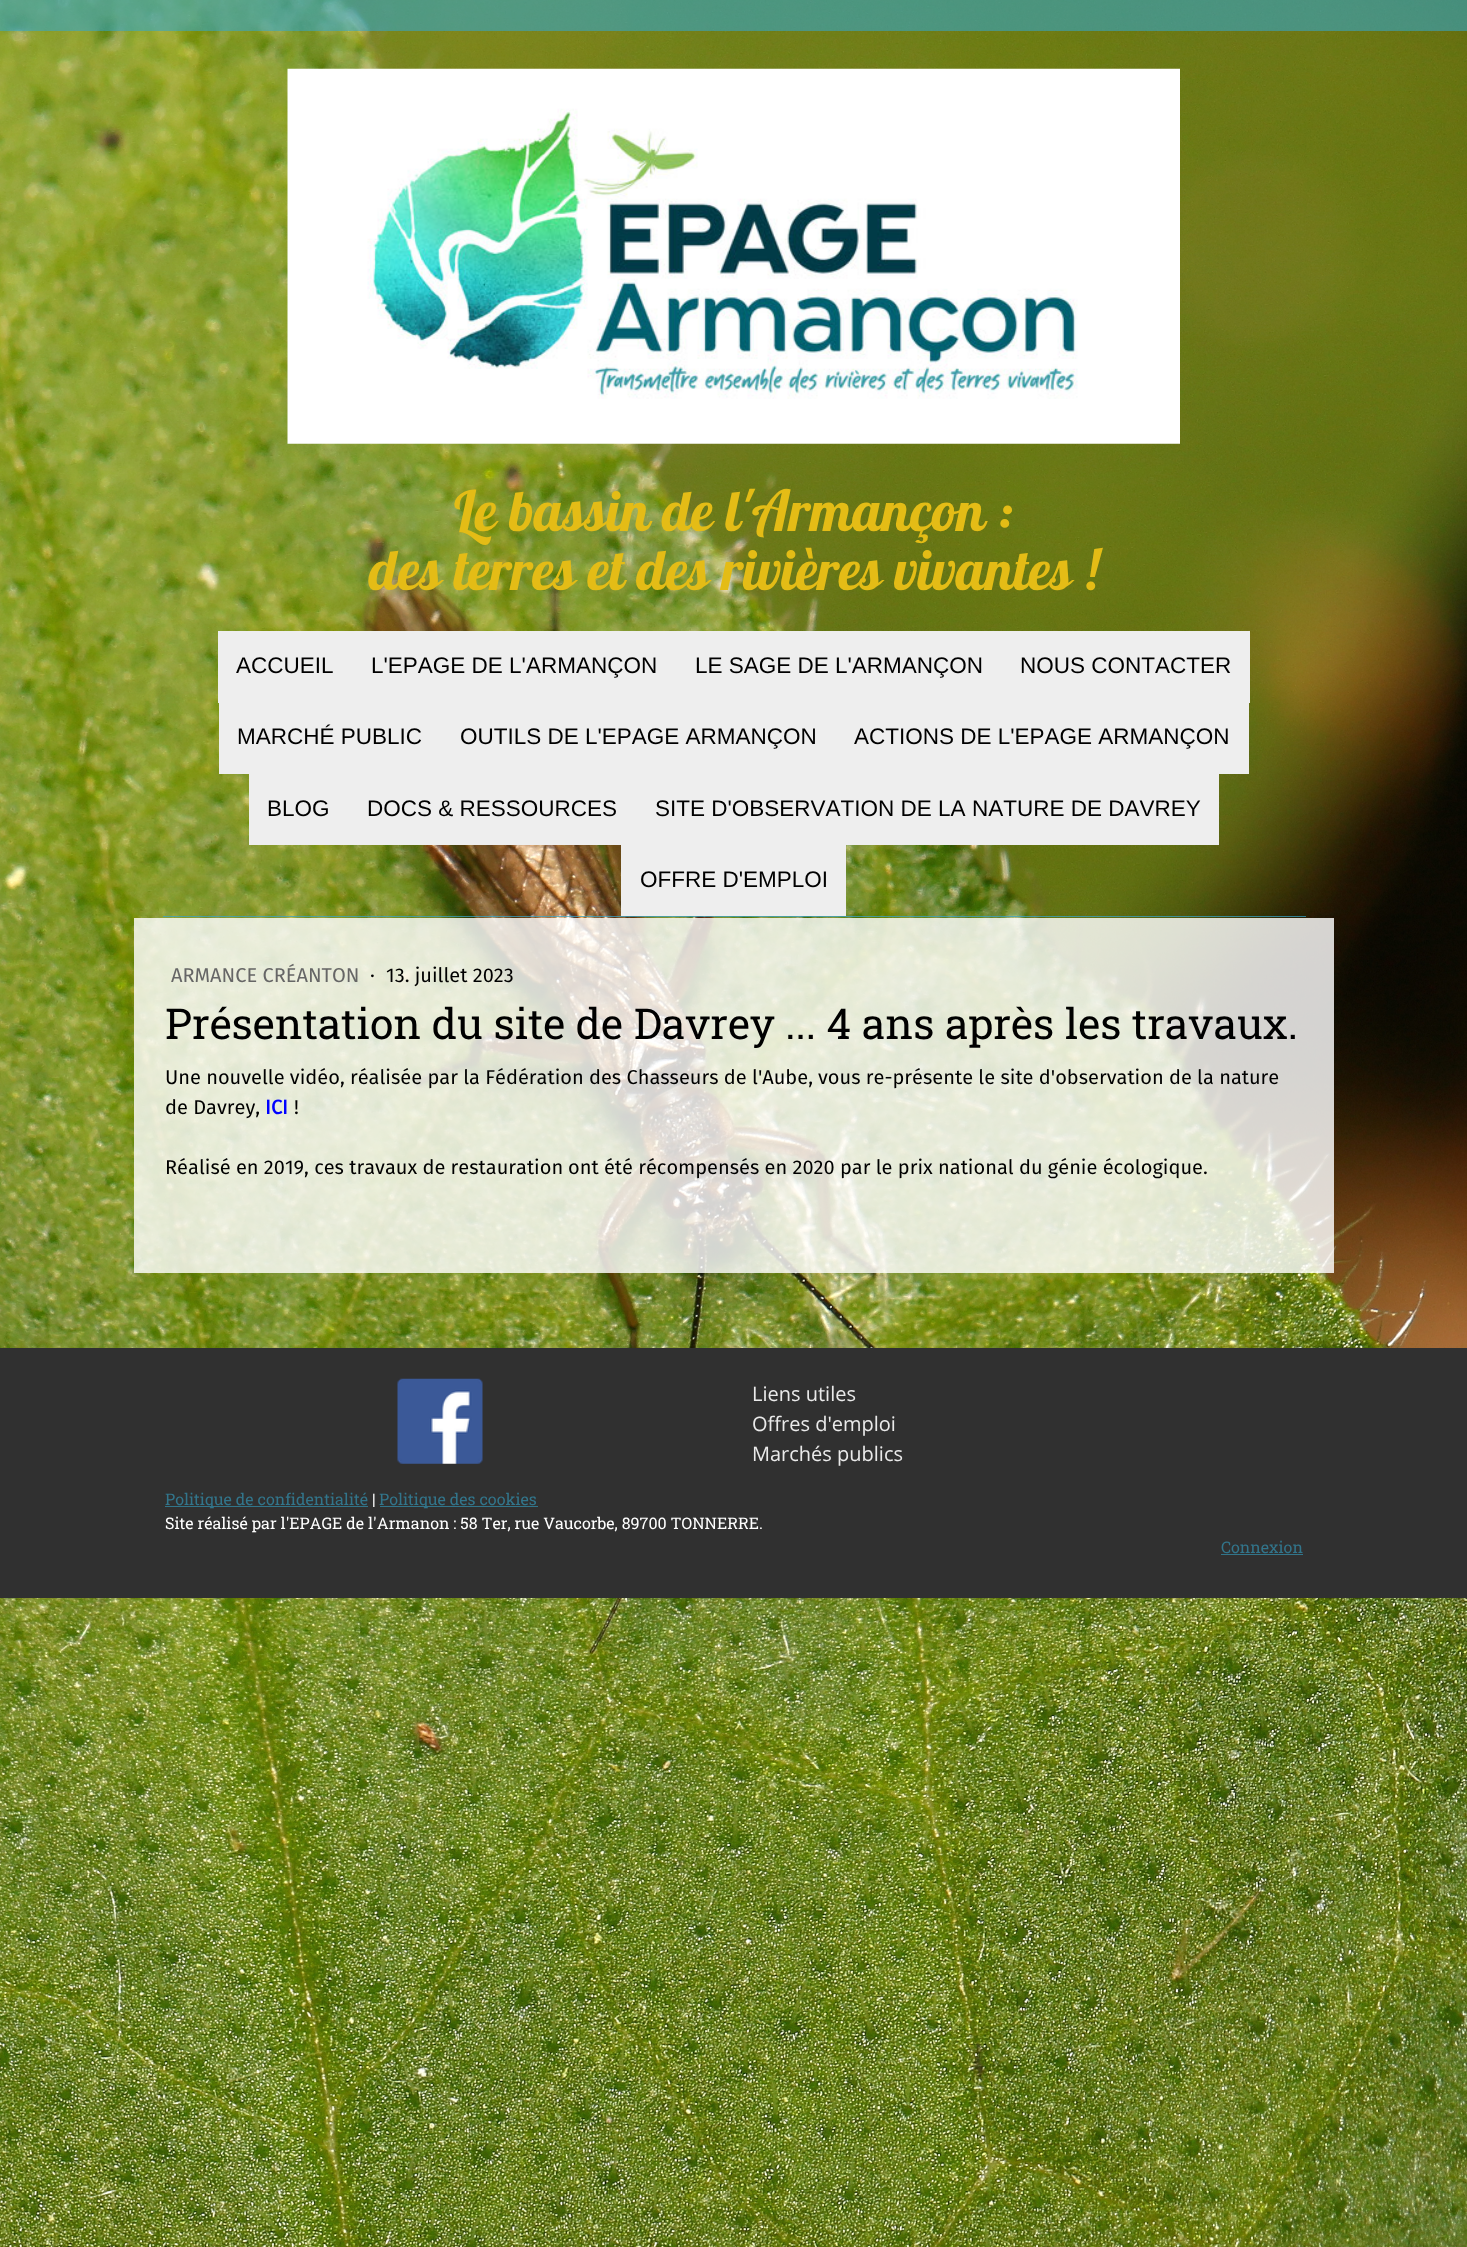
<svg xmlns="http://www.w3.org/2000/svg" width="1467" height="2247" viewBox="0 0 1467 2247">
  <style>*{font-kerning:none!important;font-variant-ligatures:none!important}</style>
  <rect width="100%" height="100%" fill="#ffffff"/>
  <image x="0" y="0" width="1467" height="2247" href="img1.png"/>
  <rect x="0" y="0" width="1467" height="31" fill="#33a7cc" fill-opacity="0.58"/>
  <image x="287" y="68" width="893" height="376" href="img2.png"/>
  <text x="454" y="531" font-family="Lobster" font-size="56.25" fill="#e4bc16">Le bassin de l'Armançon</text>
  <text x="998" y="531" font-family="Lobster" font-size="56.25" fill="#e4bc16">:</text>
  <text x="369" y="590" font-family="Lobster" font-size="56.25" fill="#e4bc16">des terres et des</text>
  <text x="722" y="590" font-family="Lobster" font-size="56.25" fill="#e4bc16">rivières vivantes !</text>
  <rect x="163" y="916" width="1143" height="1" fill="#38a5c8" fill-opacity="0.73"/>
  <rect x="218" y="631" width="1032" height="72" fill="#eeeeee"/>
  <text x="236" y="673" font-family="Liberation Sans" font-size="22.5" fill="#000000">ACCUEIL</text>
  <text x="371" y="673" font-family="Liberation Sans" font-size="22.5" fill="#000000">L'EPAGE DE L'ARMANÇON</text>
  <text x="695" y="673" font-family="Liberation Sans" font-size="22.5" fill="#000000">LE SAGE DE L'ARMANÇON</text>
  <text x="1020" y="673" font-family="Liberation Sans" font-size="22.5" fill="#000000">NOUS CONTACTER</text>
  <rect x="219" y="703" width="1030" height="71" fill="#eeeeee"/>
  <text x="237" y="744" font-family="Liberation Sans" font-size="22.5" fill="#000000">MARCHÉ PUBLIC</text>
  <text x="460" y="744" font-family="Liberation Sans" font-size="22.5" fill="#000000">OUTILS DE L'EPAGE ARMANÇON</text>
  <text x="854" y="744" font-family="Liberation Sans" font-size="22.5" fill="#000000">ACTIONS DE L'EPAGE ARMANÇON</text>
  <rect x="249" y="774" width="970" height="71" fill="#eeeeee"/>
  <text x="267" y="816" font-family="Liberation Sans" font-size="22.5" fill="#000000">BLOG</text>
  <text x="367" y="816" font-family="Liberation Sans" font-size="22.5" fill="#000000">DOCS &amp; RESSOURCES</text>
  <text x="655" y="816" font-family="Liberation Sans" font-size="22.5" fill="#000000">SITE D'OBSERVATION DE LA</text>
  <text x="972" y="816" font-family="Liberation Sans" font-size="22.5" fill="#000000">NATURE DE DAVREY</text>
  <rect x="621" y="845" width="225" height="71" fill="#eeeeee"/>
  <text x="640" y="887" font-family="Liberation Sans" font-size="22.5" fill="#000000">OFFRE D'EMPLOI</text>
  <rect x="134" y="918" width="1200" height="355" fill="#ffffff" fill-opacity="0.82"/>
  <text x="171" y="982" font-family="Fira Sans" font-size="20" fill="#666666">ARMANCE CRÉANTON</text>
  <text x="370" y="982" font-family="Fira Sans" font-size="20" fill="#000000">·</text>
  <text x="386" y="982" font-family="Fira Sans" font-size="20" fill="#000000">13. juillet 2023</text>
  <text x="165" y="1039" font-family="Roboto Slab" font-size="42.5" fill="#000000">Présentation du site de Davrey ... 4 ans après les travaux.</text>
  <text x="165" y="1084" font-family="Fira Sans" font-size="20" fill="#000000">Une nouvelle vidéo, réalisée par la Fédération des Chasseurs de l'Aube,</text>
  <text x="818" y="1084" font-family="Fira Sans" font-size="20" fill="#000000">vous re-présente le site d'observation de la nature</text>
  <text x="165" y="1114" font-family="Fira Sans" font-size="20" fill="#000000">de Davrey,</text>
  <text x="265" y="1114" font-family="Fira Sans" font-size="20" font-weight="bold" fill="#0000ff">ICI</text>
  <text x="294" y="1114" font-family="Fira Sans" font-size="20" fill="#000000">!</text>
  <text x="165" y="1174" font-family="Fira Sans" font-size="20" fill="#000000">Réalisé en 2019, ces travaux de restauration</text>
  <text x="568" y="1174" font-family="Fira Sans" font-size="20" fill="#000000">ont été récompensés en 2020 par le prix national du génie écologique.</text>
  <rect x="0" y="1348" width="1467" height="250" fill="#303030"/>
  <image x="397" y="1378" width="86" height="86" href="img3.png"/>
  <text x="752" y="1401" font-family="Open Sans" font-size="20" fill="#eaeaea">Liens utiles</text>
  <text x="752" y="1431" font-family="Open Sans" font-size="20" fill="#eaeaea">Offres d'emploi</text>
  <text x="752" y="1461" font-family="Open Sans" font-size="20" fill="#eaeaea">Marchés publics</text>
  <rect x="165" y="1506" width="203" height="1" fill="#32758a"/>
  <text x="165" y="1505" font-family="Roboto Slab" font-size="16" fill="#32758b">Politique de confidentialité</text>
  <text x="372" y="1505" font-family="Roboto Slab" font-size="16" fill="#ffffff">|</text>
  <rect x="380" y="1506" width="158" height="1" fill="#32758a"/>
  <text x="379" y="1505" font-family="Roboto Slab" font-size="16" fill="#32758b">Politique des cookies</text>
  <text x="165" y="1529" font-family="Roboto Slab" font-size="16" fill="#ffffff">Site réalisé par l'EPAGE de l'Armanon</text>
  <text x="453" y="1529" font-family="Roboto Slab" font-size="16" fill="#ffffff">: 58 Ter, rue Vaucorbe, 89700 TONNERRE.</text>
  <text x="1221" y="1553" font-family="Roboto Slab" font-size="16" fill="#32758b">Connexion</text>
  <rect x="1221" y="1554" width="82" height="1" fill="#32758a"/>
</svg>
